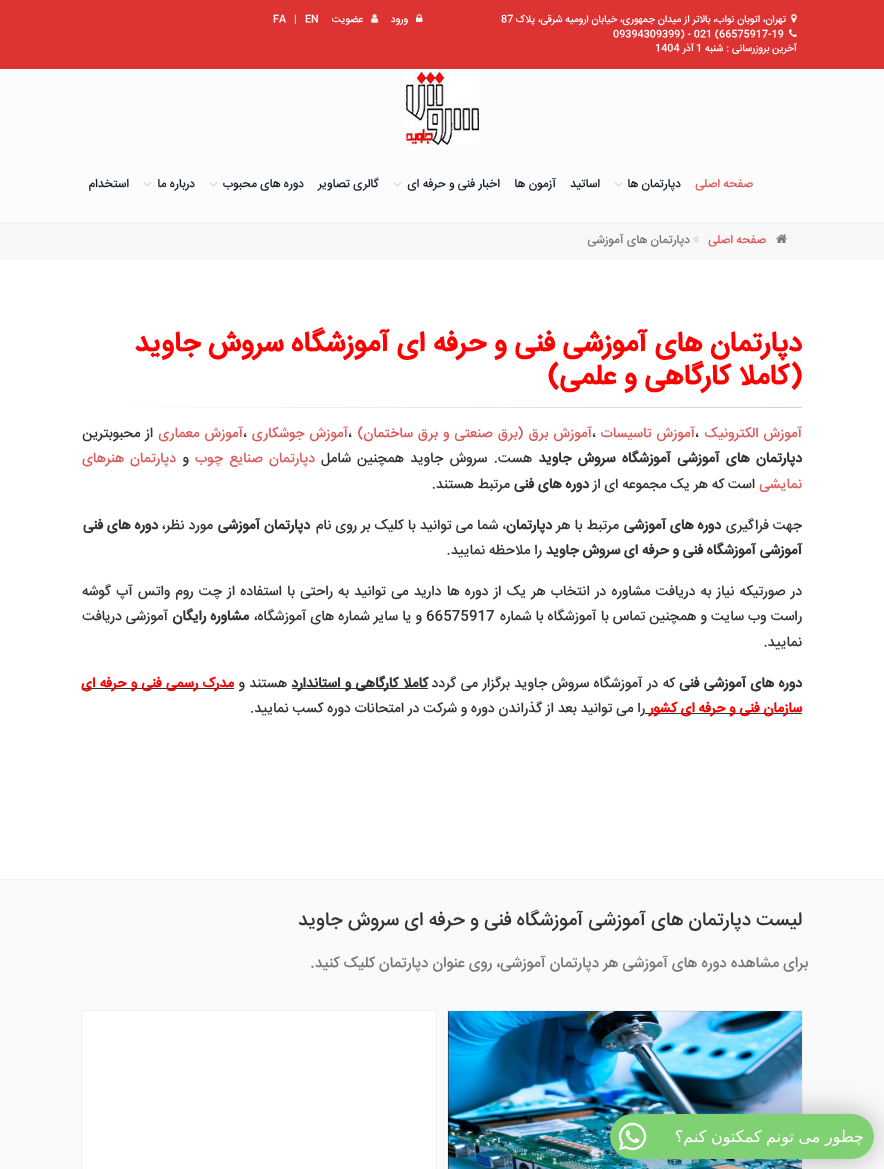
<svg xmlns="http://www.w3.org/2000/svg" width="884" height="1169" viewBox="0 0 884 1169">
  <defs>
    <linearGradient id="g1" gradientUnits="userSpaceOnUse" x1="802" y1="408" x2="82" y2="408"><stop offset="0" stop-color="#d1d1d1"/><stop offset="0.35" stop-color="#e0e0e0"/><stop offset="0.7" stop-color="#f2f2f2"/><stop offset="1" stop-color="#ffffff"/></linearGradient>
    <filter id="blur1" x="-50%" y="-200%" width="200%" height="500%"><feGaussianBlur stdDeviation="15"/></filter>
  </defs>
  <rect width="100%" height="100%" fill="#ffffff"/>
  <rect x="0" y="0" width="884" height="69" fill="#dd3333"/>
  <image x="791" y="14" width="6" height="9" href="img1.png"/>
  <text x="786" y="22" font-family="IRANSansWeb" font-size="10" font-weight="500" direction="rtl" fill="#ffffff">تهران، اتوبان نواب، بالاتر از میدان جمهوری، خیابان ارومیه شرقی، پلاک</text>
  <text x="501" y="22" font-family="IRANSansWeb" font-size="10" font-weight="500" fill="#ffffff">87</text>
  <image x="789" y="29" width="8" height="8" href="img2.png"/>
  <text x="613" y="37" font-family="IRANSansWeb" font-size="10" font-weight="500" fill="#ffffff">09394309399) - 021 (66575917-19</text>
  <text x="797" y="51" font-family="IRANSansWeb" font-size="10" font-weight="500" direction="rtl" fill="#ffffff">آخرین بروزرسانی :</text>
  <text x="723" y="51" font-family="IRANSansWeb" font-size="10" font-weight="500" direction="rtl" fill="#ffffff">شنبه</text>
  <text x="696" y="51" font-family="IRANSansWeb" font-size="10" font-weight="500" fill="#ffffff">1</text>
  <text x="694" y="51" font-family="IRANSansWeb" font-size="10" font-weight="500" direction="rtl" fill="#ffffff">آذر</text>
  <text x="655" y="51" font-family="IRANSansWeb" font-size="10" font-weight="500" fill="#ffffff">1404</text>
  <image x="416" y="14" width="7" height="8" href="img3.png"/>
  <text x="408" y="22" font-family="IRANSansWeb" font-size="10" font-weight="500" direction="rtl" fill="#ffffff">ورود</text>
  <image x="371" y="14" width="8" height="9" href="img4.png"/>
  <text x="363" y="22" font-family="IRANSansWeb" font-size="10" font-weight="500" direction="rtl" fill="#ffffff">عضویت</text>
  <text x="305" y="22" font-family="IRANSansWeb" font-size="10" font-weight="500" fill="#ffffff">EN</text>
  <text x="294" y="22" font-family="IRANSansWeb" font-size="10" font-weight="500" fill="#f1f1f1">|</text>
  <text x="273" y="22" font-family="IRANSansWeb" font-size="10" font-weight="500" fill="#ffffff">FA</text>
  <rect x="0" y="70" width="884" height="152" fill="#fcfcfc"/>
  <rect x="0" y="222" width="884" height="2" fill="#f1f1f1"/>
  <image x="406" y="72" width="73" height="73" href="img5.png"/>
  <text x="753" y="187" font-family="IRANSansWeb" font-size="12" font-weight="500" direction="rtl" fill="#dc5b5b">صفحه اصلی</text>
  <text x="681" y="187" font-family="IRANSansWeb" font-size="12" font-weight="500" direction="rtl" fill="#131f2b">دپارتمان ها</text>
  <image x="614" y="182" width="9" height="5" href="img6.png"/>
  <text x="600" y="187" font-family="IRANSansWeb" font-size="12" font-weight="500" direction="rtl" fill="#131f2b">اساتید</text>
  <text x="556" y="187" font-family="IRANSansWeb" font-size="12" font-weight="500" direction="rtl" fill="#131f2b">آزمون ها</text>
  <text x="500" y="187" font-family="IRANSansWeb" font-size="12" font-weight="500" direction="rtl" fill="#131f2b">اخبار فنی و حرفه ای</text>
  <image x="393" y="182" width="9" height="5" href="img6.png"/>
  <text x="379" y="187" font-family="IRANSansWeb" font-size="12" font-weight="500" direction="rtl" fill="#131f2b">گالری تصاویر</text>
  <text x="304" y="187" font-family="IRANSansWeb" font-size="12" font-weight="500" direction="rtl" fill="#131f2b">دوره های محبوب</text>
  <image x="209" y="182" width="9" height="5" href="img6.png"/>
  <text x="195" y="187" font-family="IRANSansWeb" font-size="12" font-weight="500" direction="rtl" fill="#131f2b">درباره ما</text>
  <image x="143" y="182" width="9" height="5" href="img6.png"/>
  <text x="129" y="187" font-family="IRANSansWeb" font-size="12" font-weight="500" direction="rtl" fill="#131f2b">استخدام</text>
  <rect x="0" y="224" width="884" height="34" fill="#f8f8f8"/>
  <rect x="0" y="258" width="884" height="1" fill="#f4f4f4"/>
  <image x="776" y="234" width="11" height="9" href="img7.png"/>
  <text x="766" y="243" font-family="IRANSansWeb" font-size="12" font-weight="500" direction="rtl" fill="#dc5b5b">صفحه اصلی</text>
  <image x="693" y="236" width="6" height="7" href="img8.png"/>
  <text x="690" y="243" font-family="IRANSansWeb" font-size="12" font-weight="500" direction="rtl" fill="#777777">دپارتمان های آموزشی</text>
  <text x="802" y="351" font-family="IRANSansWeb" font-size="28" font-weight="bold" direction="rtl" fill="#ff0000">دپارتمان های آموزشی فنی و حرفه ای آموزشگاه سروش جاوید</text>
  <text x="802" y="384" font-family="IRANSansWeb" font-size="28" font-weight="bold" direction="rtl" fill="#ff0000">(کاملا کارگاهی و علمی)</text>
  <rect x="124" y="407" width="678" height="1" fill="url(#g1)"/>
  <text x="802" y="437" word-spacing="1" font-family="IRANSansWeb" font-size="14" font-weight="500" direction="rtl" fill="#dc5b5b">آموزش الکترونیک</text>
  <text x="695" y="437" font-family="IRANSansWeb" font-size="14" font-weight="500" fill="#333333">،</text>
  <text x="695" y="437" word-spacing="1" font-family="IRANSansWeb" font-size="14" font-weight="500" direction="rtl" fill="#dc5b5b">آموزش تاسیسات</text>
  <text x="592" y="437" font-family="IRANSansWeb" font-size="14" font-weight="500" fill="#333333">،</text>
  <text x="592" y="437" word-spacing="1.25" font-family="IRANSansWeb" font-size="14" font-weight="500" direction="rtl" fill="#dc5b5b">آموزش برق (برق صنعتی و برق ساختمان)</text>
  <text x="348" y="437" font-family="IRANSansWeb" font-size="14" font-weight="500" fill="#333333">،</text>
  <text x="348" y="437" word-spacing="1" font-family="IRANSansWeb" font-size="14" font-weight="500" direction="rtl" fill="#dc5b5b">آموزش جوشکاری</text>
  <text x="243" y="437" font-family="IRANSansWeb" font-size="14" font-weight="500" fill="#333333">،</text>
  <text x="243" y="437" word-spacing="1" font-family="IRANSansWeb" font-size="14" font-weight="500" direction="rtl" fill="#dc5b5b">آموزش معماری</text>
  <text x="153" y="437" word-spacing="1" font-family="IRANSansWeb" font-size="14" font-weight="500" direction="rtl" fill="#333333">از محبوبترین</text>
  <text x="802" y="462" word-spacing="2.5" font-family="IRANSansWeb" font-size="14" font-weight="bold" direction="rtl" fill="#333333">دپارتمان های آموزشی آموزشگاه سروش جاوید</text>
  <text x="532" y="462" word-spacing="2.5" font-family="IRANSansWeb" font-size="14" font-weight="500" direction="rtl" fill="#333333">هست. سروش جاوید همچنین شامل</text>
  <text x="315" y="462" word-spacing="2.5" font-family="IRANSansWeb" font-size="14" font-weight="500" direction="rtl" fill="#dc5b5b">دپارتمان صنایع چوب</text>
  <text x="189" y="462" font-family="IRANSansWeb" font-size="14" font-weight="500" direction="rtl" fill="#333333">و</text>
  <text x="176" y="462" word-spacing="2" font-family="IRANSansWeb" font-size="14" font-weight="500" direction="rtl" fill="#dc5b5b">دپارتمان هنرهای</text>
  <text x="802" y="488" font-family="IRANSansWeb" font-size="14" font-weight="500" direction="rtl" fill="#dc5b5b">نمایشی</text>
  <text x="755" y="488" font-family="IRANSansWeb" font-size="14" font-weight="500" direction="rtl" fill="#333333">است که هر یک مجموعه ای از</text>
  <text x="589" y="488" font-family="IRANSansWeb" font-size="14" font-weight="bold" direction="rtl" fill="#333333">دوره های فنی</text>
  <text x="510" y="488" font-family="IRANSansWeb" font-size="14" font-weight="500" direction="rtl" fill="#333333">مرتبط هستند.</text>
  <text x="802" y="529" font-family="IRANSansWeb" font-size="14" font-weight="500" direction="rtl" fill="#333333">جهت فراگیری</text>
  <text x="721" y="529" font-family="IRANSansWeb" font-size="14" font-weight="bold" direction="rtl" fill="#333333">دوره های آموزشی</text>
  <text x="619" y="529" word-spacing="0.25" font-family="IRANSansWeb" font-size="14" font-weight="500" direction="rtl" fill="#333333">مرتبط با هر</text>
  <text x="552" y="529" font-family="IRANSansWeb" font-size="14" font-weight="bold" direction="rtl" fill="#333333">دپارتمان</text>
  <text x="506" y="529" word-spacing="0.25" font-family="IRANSansWeb" font-size="14" font-weight="500" direction="rtl" fill="#333333">، شما می توانید با کلیک بر روی نام</text>
  <text x="310" y="529" font-family="IRANSansWeb" font-size="14" font-weight="bold" direction="rtl" fill="#333333">دپارتمان آموزشی</text>
  <text x="213" y="529" word-spacing="0.25" font-family="IRANSansWeb" font-size="14" font-weight="500" direction="rtl" fill="#333333">مورد نظر،</text>
  <text x="158" y="529" font-family="IRANSansWeb" font-size="14" font-weight="bold" direction="rtl" fill="#333333">دوره های فنی</text>
  <text x="802" y="554" font-family="IRANSansWeb" font-size="14" font-weight="bold" direction="rtl" fill="#333333">آموزشی آموزشگاه فنی و حرفه ای سروش جاوید</text>
  <text x="542" y="554" font-family="IRANSansWeb" font-size="14" font-weight="500" direction="rtl" fill="#333333">را ملاحظه نمایید.</text>
  <text x="802" y="595" word-spacing="1.35" font-family="IRANSansWeb" font-size="14" font-weight="500" direction="rtl" fill="#333333">در صورتیکه نیاز به دریافت مشاوره در انتخاب هر یک از دوره ها دارید می توانید به راحتی با استفاده از چت روم واتس آپ گوشه</text>
  <text x="802" y="620" word-spacing="0.25" font-family="IRANSansWeb" font-size="14" font-weight="500" direction="rtl" fill="#333333">راست وب سایت و همچنین تماس با آموزشگاه با شماره</text>
  <text x="426" y="620" font-family="IRANSansWeb" font-size="14" font-weight="500" fill="#333333">66575917</text>
  <text x="422" y="620" word-spacing="0.25" font-family="IRANSansWeb" font-size="14" font-weight="500" direction="rtl" fill="#333333">و یا سایر شماره های آموزشگاه،</text>
  <text x="249" y="620" font-family="IRANSansWeb" font-size="14" font-weight="bold" direction="rtl" fill="#333333">مشاوره رایگان</text>
  <text x="168" y="620" font-family="IRANSansWeb" font-size="14" font-weight="500" direction="rtl" fill="#333333">آموزشی دریافت</text>
  <text x="802" y="646" font-family="IRANSansWeb" font-size="14" font-weight="500" direction="rtl" fill="#333333">نمایید.</text>
  <text x="802" y="687" word-spacing="0.5" font-family="IRANSansWeb" font-size="14" font-weight="bold" direction="rtl" fill="#333333">دوره های آموزشی فنی</text>
  <text x="675" y="687" word-spacing="0.5" font-family="IRANSansWeb" font-size="14" font-weight="500" direction="rtl" fill="#333333">که در آموزشگاه سروش جاوید برگزار می گردد</text>
  <rect x="292" y="688" width="136" height="1" fill="#333333"/>
  <text x="428" y="687" word-spacing="0.5" font-family="IRANSansWeb" font-size="14" font-weight="bold" direction="rtl" fill="#333333">کاملا کارگاهی و استاندارد</text>
  <text x="287" y="687" word-spacing="0.5" font-family="IRANSansWeb" font-size="14" font-weight="500" direction="rtl" fill="#333333">هستند و</text>
  <rect x="82" y="688" width="152" height="1" fill="#333333"/>
  <text x="234" y="687" word-spacing="0.5" font-family="IRANSansWeb" font-size="14" font-weight="bold" direction="rtl" fill="#ff0000">مدرک رسمی فنی و حرفه ای</text>
  <rect x="645" y="713" width="157" height="1" fill="#333333"/>
  <text x="802" y="712" font-family="IRANSansWeb" font-size="14" font-weight="bold" direction="rtl" fill="#ff0000">سازمان فنی و حرفه ای کشور</text>
  <text x="645" y="712" font-family="IRANSansWeb" font-size="14" font-weight="500" direction="rtl" fill="#333333">را می توانید بعد از گذراندن دوره و شرکت در امتحانات دوره کسب نمایید.</text>
  <rect x="0" y="880" width="884" height="289" fill="#fafafa"/>
  <rect x="0" y="879" width="884" height="1" fill="#f3f3f3"/>
  <text x="802" y="925" font-family="IRANSansWeb" font-size="19" font-weight="500" direction="rtl" fill="#333333">لیست دپارتمان های آموزشی آموزشگاه فنی و حرفه ای سروش جاوید</text>
  <text x="808" y="967" font-family="IRANSansWeb" font-size="15" font-weight="500" direction="rtl" fill="#777777">برای مشاهده دوره های آموزشی هر دپارتمان آموزشی، روی عنوان دپارتمان کلیک کنید.</text>
  <rect x="447.5" y="1010.5" width="355" height="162" rx="2.5" fill="none" stroke="#f1f1f1"/>
  <image x="448" y="1011" width="354" height="158" href="img9.png"/>
  <rect x="81.5" y="1010.5" width="355" height="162" rx="2.5" fill="#ffffff" stroke="#f1f1f1"/>
  <rect x="610" y="1114" width="264" height="45" rx="22.5" fill="#000000" fill-opacity="0.3" filter="url(#blur1)"/>
  <rect x="610" y="1114" width="264" height="45" rx="22.5" fill="#80d173"/>
  <text x="864" y="1142" word-spacing="-0.5" font-family="DejaVu Sans" font-size="16" direction="rtl" fill="#ffffff">چطور می تونم کمکتون کنم؟</text>
  <image x="618" y="1122" width="29" height="29" href="img10.png"/>
</svg>
